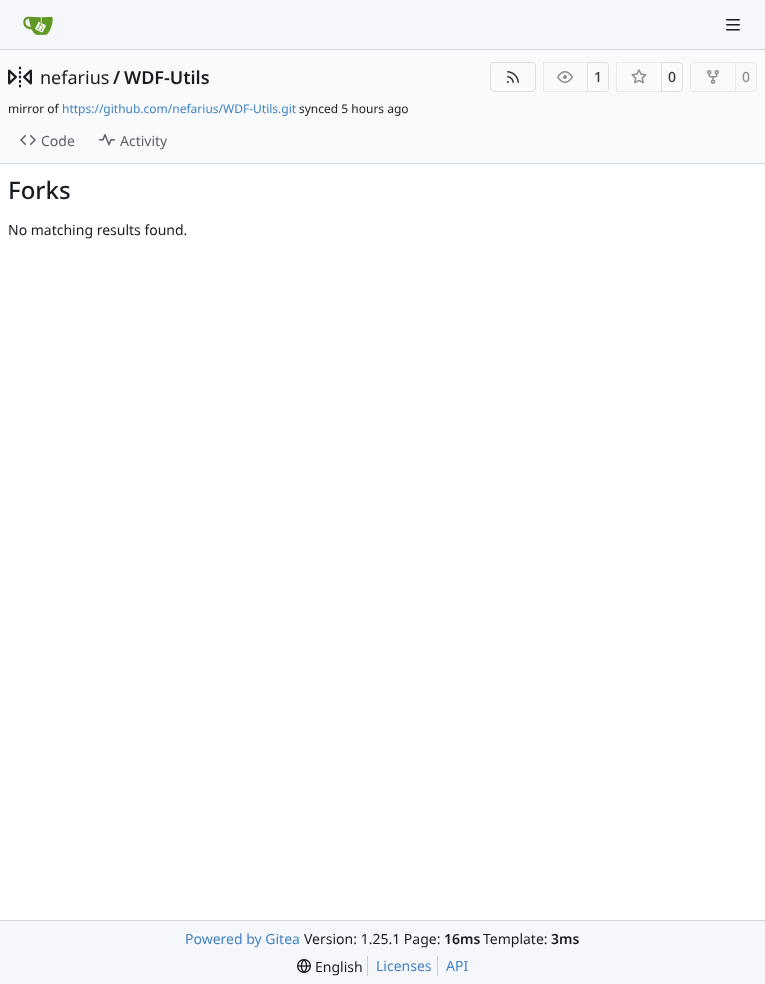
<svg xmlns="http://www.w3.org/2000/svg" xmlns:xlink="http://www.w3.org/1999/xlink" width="765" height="984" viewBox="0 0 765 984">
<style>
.cls-1{font:18px Noto Sans;fill:#181c21}
.cls-2{font:600 18px Noto Sans;fill:#181c21}
.cls-3{font:500 14px Noto Sans;fill:#30363b}
.cls-4{font:500 14px Noto Sans;fill:#8a8e91}
.cls-5{font:12px Noto Sans;fill:#181c21}
.cls-6{font:12px Noto Sans;fill:#4183c4}
.cls-7{font:14px Noto Sans;fill:#5b6167}
.cls-8{font:500 24px Noto Sans;fill:#181c21}
.cls-9{font:14px Noto Sans;fill:#181c21}
.cls-10{font:14px Noto Sans;fill:#4183c4}
.cls-11{font:600 14px Noto Sans;fill:#181c21}
</style>
<rect width="100%" height="100%" fill="#ffffff"/>
<rect fill="#f6f7fa" x="0" y="0" width="765" height="49"/>
<rect fill="#d0d7de" x="0" y="49" width="765" height="1"/>
<image xlink:href="image0.png" x="23" y="16" width="30" height="19"/>
<image xlink:href="image1.png" x="726" y="19" width="14" height="12"/>
<rect fill="#f9fafb" x="0" y="50" width="765" height="113"/>
<image xlink:href="image2.png" x="8" y="66" width="24" height="22"/>
<rect fill="none" stroke="#dddee1" x="490.5" y="62.5" width="45" height="29" rx="3.5"/>
<image xlink:href="image3.png" x="507" y="71" width="12" height="12"/>
<path fill="none" stroke="#dddee1" d="M587.5 62.5H605C607 62.5 608.5 64 608.5 66V88C608.5 90 607 91.5 605 91.5H587.5Z"/>
<path fill="#f8f9fb" fill-opacity="0.55" d="M547 62H588V92H547C545 92 543 90 543 88V66C543 64 545 62 547 62Z"/>
<rect fill="none" stroke="#000017" stroke-opacity="0.06" x="543.5" y="62.5" width="44" height="29"/>
<image xlink:href="image4.png" x="557" y="71" width="16" height="12"/>
<path fill="none" stroke="#dddee1" d="M661.5 62.5H679C681 62.5 682.5 64 682.5 66V88C682.5 90 681 91.5 679 91.5H661.5Z"/>
<path fill="#f8f9fb" fill-opacity="0.55" d="M620 62H662V92H620C618 92 616 90 616 88V66C616 64 618 62 620 62Z"/>
<rect fill="none" stroke="#000017" stroke-opacity="0.06" x="616.5" y="62.5" width="45" height="29"/>
<image xlink:href="image5.png" x="631" y="69" width="16" height="15"/>
<path fill="none" stroke="#e9eaed" d="M694 62.5H735.5V91.5H694C692 91.5 690.5 90 690.5 88V66C690.5 64 692 62.5 694 62.5Z"/>
<image xlink:href="image6.png" x="707" y="70" width="12" height="14"/>
<path fill="#f8f9fb" stroke="#e9eaed" d="M735.5 62.5H753C755 62.5 756.5 64 756.5 66V88C756.5 90 755 91.5 753 91.5H735.5Z"/>
<image xlink:href="image7.png" x="20" y="135" width="16" height="10"/>
<image xlink:href="image8.png" x="99" y="134" width="16" height="12"/>
<rect fill="#d0d7de" x="0" y="163" width="765" height="1"/>
<rect fill="#f6f7fa" x="0" y="921" width="765" height="63"/>
<rect fill="#d0d7de" x="0" y="920" width="765" height="1"/>
<image xlink:href="image9.png" x="297" y="959" width="14" height="14"/>
<rect fill="#c7ced5" x="367" y="956" width="1" height="20"/>
<rect fill="#c7ced5" x="437" y="956" width="1" height="20"/>
<text class="cls-1" x="40" y="84">nefarius</text>
<text class="cls-2" x="113" y="84">/</text>
<text class="cls-2" x="124" y="84">WDF-Utils</text>
<text class="cls-3" x="594" y="82">1</text>
<text class="cls-3" x="668" y="82">0</text>
<text class="cls-4" x="742" y="82">0</text>
<text class="cls-5" x="8" y="113">mirror of</text>
<text class="cls-6" x="62" y="113">https://github.com/nefarius/WDF-Utils.git</text>
<text class="cls-5" x="299" y="113">synced 5 hours ago</text>
<text class="cls-7" x="41" y="146">Code</text>
<text class="cls-7" x="120" y="146">Activity</text>
<text class="cls-8" x="8" y="199">Forks</text>
<text class="cls-9" x="8" y="235">No matching results found.</text>
<text class="cls-10" x="185" y="944">Powered by Gitea</text>
<text class="cls-9" x="304" y="944">Version: 1.25.1 Page:</text>
<text class="cls-11" x="444" y="944">16ms</text>
<text class="cls-9" x="483" y="944">Template:</text>
<text class="cls-11" x="551" y="944">3ms</text>
<text class="cls-9" x="315" y="972">English</text>
<text class="cls-10" x="376" y="971">Licenses</text>
<text class="cls-10" x="446" y="971">API</text>
</svg>
